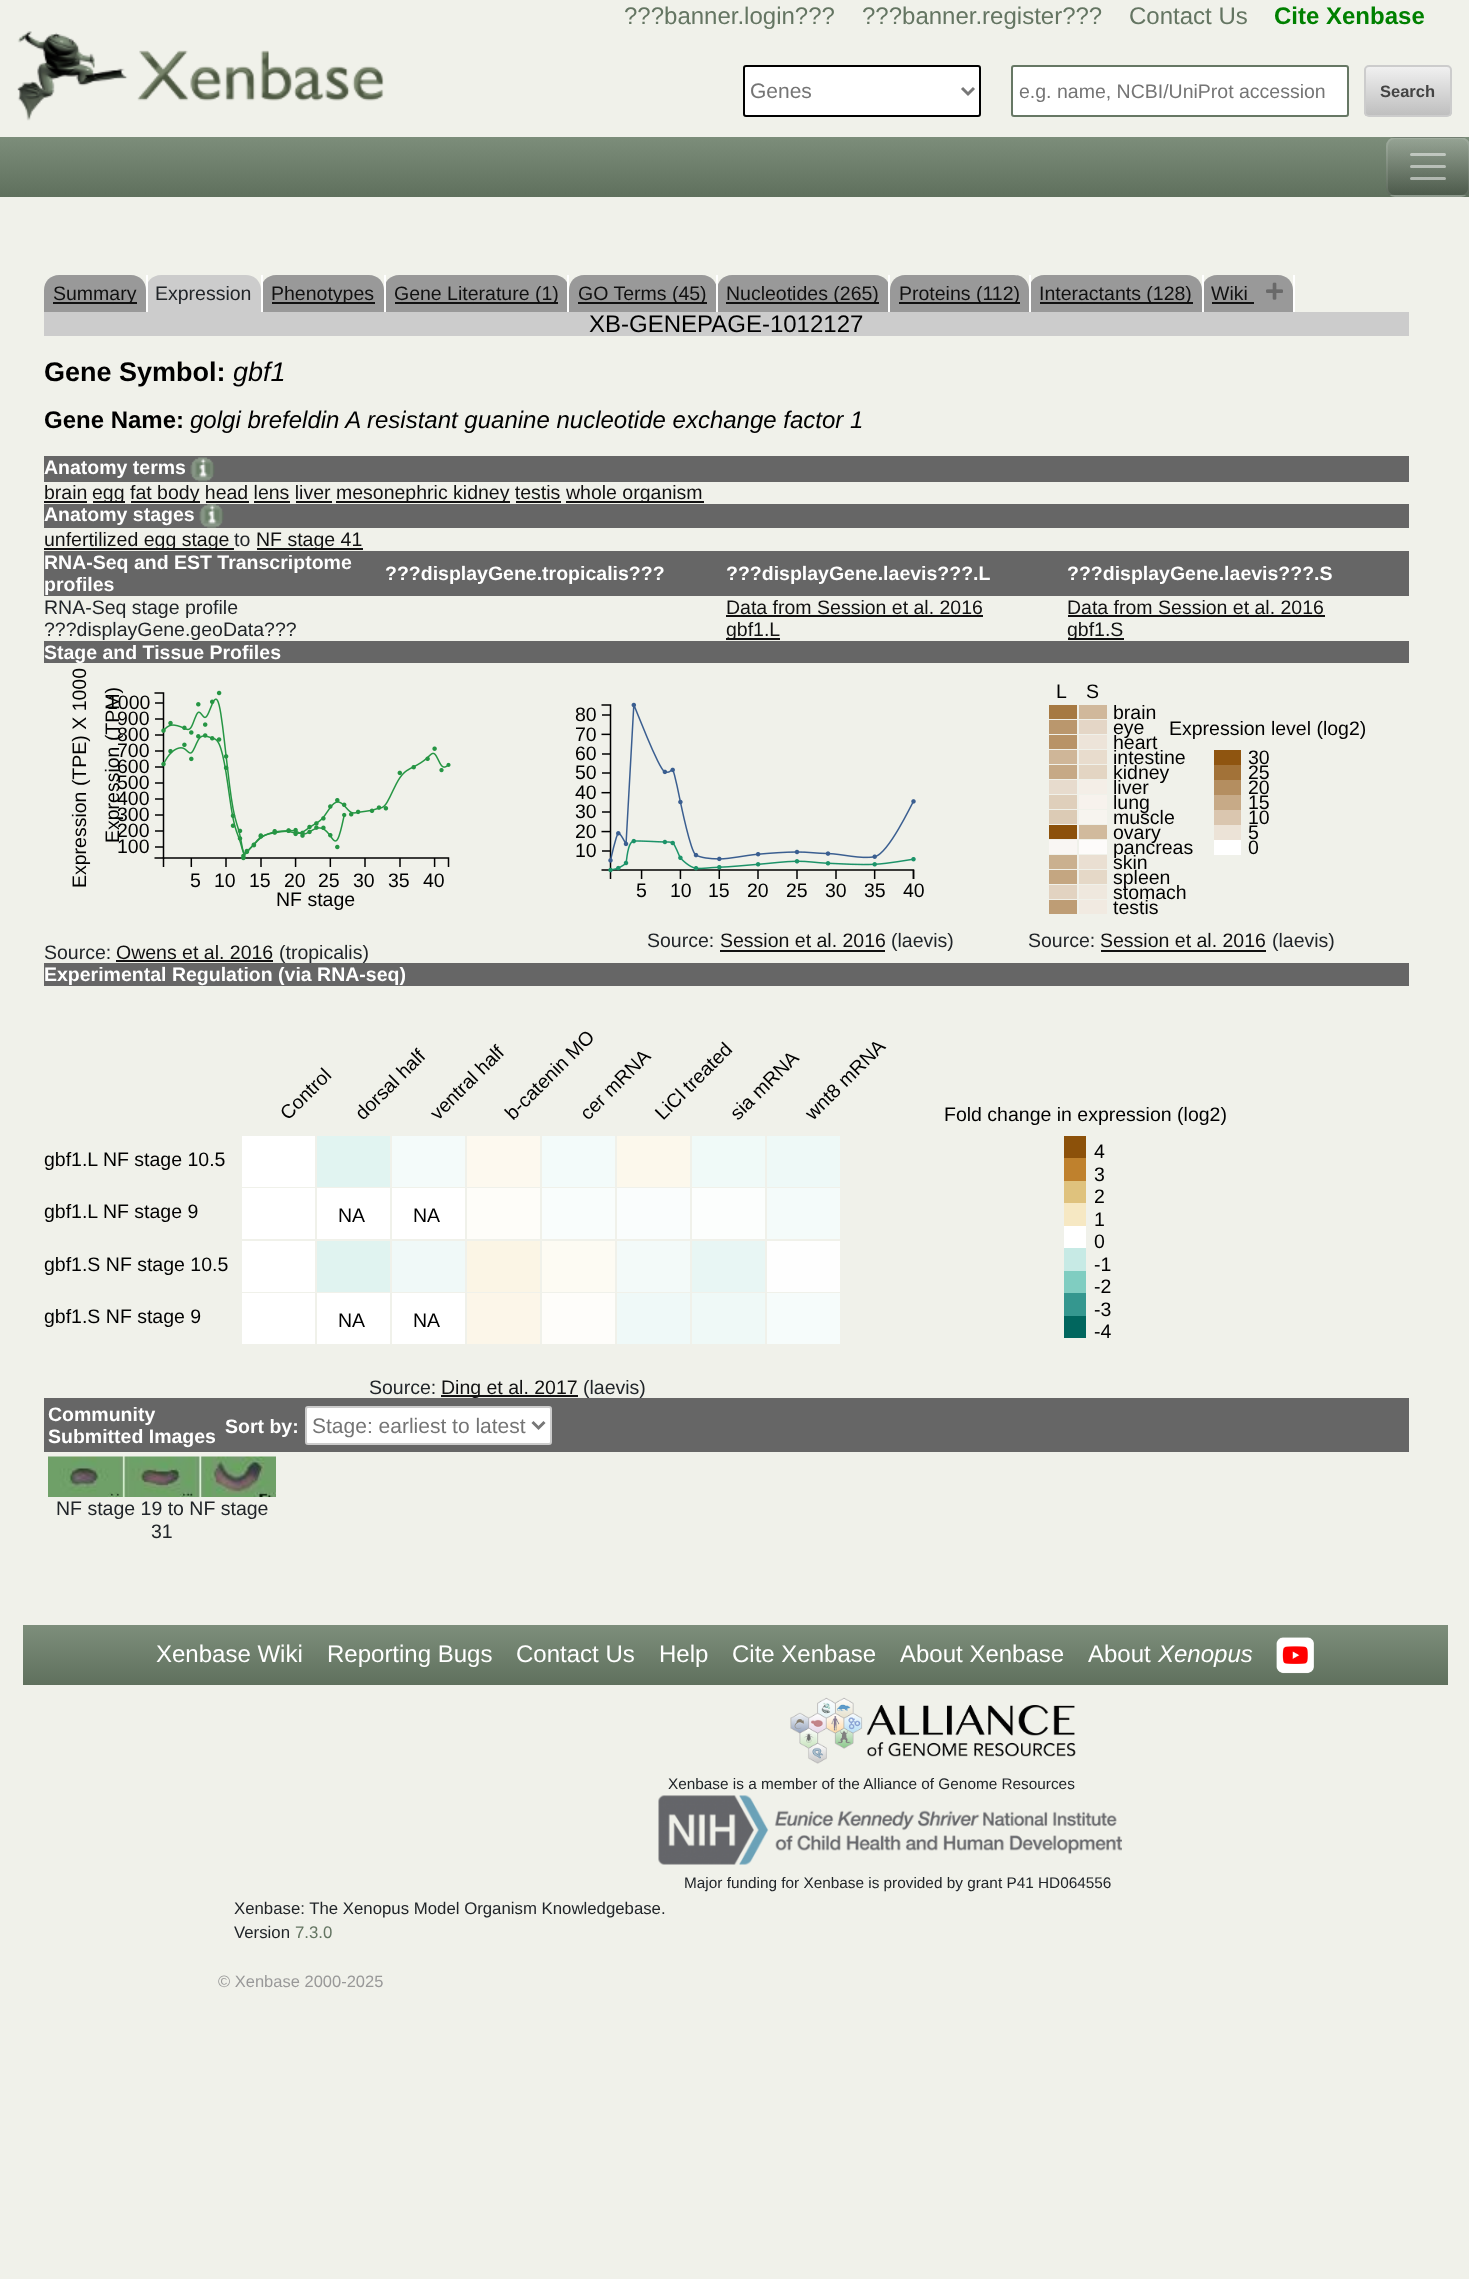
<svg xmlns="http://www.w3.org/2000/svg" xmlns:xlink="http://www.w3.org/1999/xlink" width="1469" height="2279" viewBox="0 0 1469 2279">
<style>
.cls-1{font:24px Liberation Sans;fill:#647562}
.cls-2{font:bold 24px Liberation Sans;fill:#008000}
.cls-3{font:21px Liberation Sans;fill:#757575}
.cls-4{font:19.5px Liberation Sans;fill:#757575}
.cls-5{font:bold 16.5px Liberation Sans;fill:#444444}
.cls-6{font:19.5px Liberation Sans;fill:#111111}
.cls-7{font:19.5px Liberation Sans;fill:#212529}
.cls-8{font:24px Liberation Sans;fill:#000000}
.cls-9{font:bold 27px Liberation Sans;fill:#000000}
.cls-10{font:italic 27px Liberation Sans;fill:#000000}
.cls-11{font:bold 24px Liberation Sans;fill:#000000}
.cls-12{font:italic 24px Liberation Sans;fill:#000000}
.cls-13{font:bold 19.5px Liberation Sans;fill:#ffffff}
.cls-14{font:19.5px Liberation Sans;fill:#000000}
.cls-15{font:24px Liberation Sans;fill:#ffffff}
.cls-16{font:italic 24px Liberation Sans;fill:#ffffff}
.cls-17{font:15.35px Liberation Sans;fill:#212529}
.cls-18{font:16.8px Liberation Sans;fill:#212529}
.cls-19{font:16.8px Liberation Sans;fill:#647562}
.cls-20{font:16.5px Liberation Sans;fill:#999999}
</style>
<defs>
<clipPath id="clip1"><rect x="1364" y="65" width="88" height="52" rx="5"/></clipPath>
<linearGradient id="g1" gradientUnits="userSpaceOnUse" x1="1408" y1="66" x2="1408" y2="116"><stop offset="0" stop-color="#f1f1f1"/><stop offset="1" stop-color="#bebebe"/></linearGradient>
<linearGradient id="g2" gradientUnits="userSpaceOnUse" x1="735" y1="136" x2="735" y2="197"><stop offset="0" stop-color="#7d8e7b"/><stop offset="1" stop-color="#5f705d"/></linearGradient>
<clipPath id="clip2"><rect x="1386" y="137" width="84" height="60" rx="9"/></clipPath>
<linearGradient id="g3" gradientUnits="userSpaceOnUse" x1="1428" y1="81" x2="1428" y2="138"><stop offset="0" stop-color="#96a495"/><stop offset="1" stop-color="#637162"/></linearGradient>
<linearGradient id="g4" gradientUnits="userSpaceOnUse" x1="1428" y1="138" x2="1428" y2="195"><stop offset="0" stop-color="#ffffff" stop-opacity="0.2"/><stop offset="1" stop-color="#000000" stop-opacity="0.2"/></linearGradient>
<linearGradient id="g5" gradientUnits="userSpaceOnUse" x1="1428" y1="195" x2="1428" y2="252"><stop offset="0" stop-color="#7f8d7e"/><stop offset="1" stop-color="#4c5a4b"/></linearGradient>
<linearGradient id="g6" gradientUnits="userSpaceOnUse" x1="735" y1="1625" x2="735" y2="1685"><stop offset="0" stop-color="#7d8e7b"/><stop offset="1" stop-color="#5f705d"/></linearGradient>
</defs>
<rect width="100%" height="100%" fill="#f0f1ea"/>
<image xlink:href="image0.png" x="17" y="31" width="367" height="90"/>
<rect fill="#ffffff" stroke="#000000" stroke-width="2" x="744" y="66" width="236" height="50" rx="2"/>
<path fill="none" stroke="#777777" stroke-width="3" d="M962 88L968 94L974 88"/>
<rect fill="#ffffff" stroke="#667764" stroke-width="2" x="1012" y="66" width="336" height="50" rx="2"/>
<g clip-path="url(#clip1)">
<rect fill="url(#g1)" x="1364" y="66" width="88" height="50"/>
</g>
<rect fill="none" stroke="#cccccc" stroke-width="2" x="1365" y="66" width="86" height="50" rx="4"/>
<rect fill="url(#g2)" x="0" y="137" width="1469" height="60"/>
<g clip-path="url(#clip2)">
<rect fill="url(#g3)" x="1386" y="137" width="83" height="1"/>
<rect fill="url(#g4)" x="1386" y="138" width="83" height="57"/>
<rect fill="url(#g5)" x="1386" y="195" width="83" height="2"/>
</g>
<rect fill="none" stroke="#ffffff" stroke-opacity="0.1" stroke-width="2" x="1387" y="138" width="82" height="58" rx="8"/>
<path fill="none" stroke="#ffffff" stroke-opacity="0.5" stroke-width="3" stroke-linecap="round" d="M1411.5 154.5H1444.5M1411.5 166.5H1444.5M1411.5 178.5H1444.5"/>
<path fill="#999999" d="M59 275H131C139.5 275 146 281.5 146 290V312H44V290C44 281.5 50.5 275 59 275Z"/>
<path fill="#cccccc" d="M161 275H246C254.5 275 261 281.5 261 290V312H146V290C146 281.5 152.5 275 161 275Z"/>
<rect fill="#ffffff" x="146" y="275" width="2" height="39"/>
<rect fill="#111111" x="53" y="302" width="84" height="2"/>
<path fill="#999999" d="M276 275H369C377.5 275 384 281.5 384 290V312H261V290C261 281.5 267.5 275 276 275Z"/>
<rect fill="#ffffff" x="261" y="275" width="2" height="39"/>
<path fill="#999999" d="M399 275H554C562.5 275 569 281.5 569 290V312H384V290C384 281.5 390.5 275 399 275Z"/>
<rect fill="#ffffff" x="384" y="275" width="2" height="39"/>
<rect fill="#111111" x="272" y="302" width="103" height="2"/>
<rect fill="#ffffff" x="567" y="275" width="2" height="39"/>
<rect fill="#111111" x="395" y="302" width="163" height="2"/>
<path fill="#999999" d="M584 275H702C710.5 275 717 281.5 717 290V312H569V290C569 281.5 575.5 275 584 275Z"/>
<path fill="#999999" d="M732 275H875C883.5 275 890 281.5 890 290V312H717V290C717 281.5 723.5 275 732 275Z"/>
<rect fill="#ffffff" x="716" y="275" width="2" height="39"/>
<rect fill="#111111" x="578" y="302" width="129" height="2"/>
<rect fill="#ffffff" x="888" y="275" width="2" height="39"/>
<rect fill="#111111" x="726" y="302" width="153" height="2"/>
<path fill="#999999" d="M905 275H1014C1022.5 275 1029 281.5 1029 290V312H890V290C890 281.5 896.5 275 905 275Z"/>
<path fill="#999999" d="M1044 275H1187C1195.5 275 1202 281.5 1202 290V312H1029V290C1029 281.5 1035.5 275 1044 275Z"/>
<rect fill="#ffffff" x="1029" y="275" width="2" height="39"/>
<rect fill="#111111" x="899" y="302" width="121" height="2"/>
<path fill="#999999" d="M1217 275H1278C1286.5 275 1293 281.5 1293 290V312H1202V290C1202 281.5 1208.5 275 1217 275Z"/>
<rect fill="#ffffff" x="1202" y="275" width="2" height="39"/>
<rect fill="#111111" x="1040" y="302" width="153" height="2"/>
<rect fill="#ffffff" x="1293" y="275" width="2" height="39"/>
<rect fill="#111111" x="1212" y="302" width="42" height="2"/>
<image xlink:href="image1.png" x="1266" y="282" width="17" height="18"/>
<rect fill="#cccccc" x="44" y="312" width="1365" height="24"/>
<rect fill="#666666" x="44" y="456" width="1365" height="26"/>
<image xlink:href="image2.png" x="190" y="457" width="25" height="25"/>
<rect fill="#111111" x="44" y="501" width="43" height="2"/>
<rect fill="#111111" x="93" y="501" width="32" height="2"/>
<rect fill="#111111" x="131" y="501" width="69" height="2"/>
<rect fill="#111111" x="336" y="501" width="174" height="2"/>
<rect fill="#111111" x="566" y="501" width="138" height="2"/>
<rect fill="#111111" x="206" y="501" width="43" height="2"/>
<rect fill="#111111" x="254" y="501" width="36" height="2"/>
<rect fill="#111111" x="296" y="501" width="36" height="2"/>
<rect fill="#111111" x="516" y="501" width="45" height="2"/>
<rect fill="#666666" x="44" y="504" width="1365" height="24"/>
<image xlink:href="image3.png" x="199" y="504" width="25" height="24"/>
<rect fill="#111111" x="44" y="548" width="190" height="2"/>
<rect fill="#111111" x="257" y="548" width="106" height="2"/>
<rect fill="#666666" x="44" y="551" width="1365" height="45"/>
<rect fill="#111111" x="726" y="615" width="257" height="2"/>
<rect fill="#111111" x="1068" y="615" width="257" height="2"/>
<rect fill="#111111" x="726" y="638" width="54" height="2"/>
<rect fill="#111111" x="1068" y="638" width="56" height="2"/>
<rect fill="#666666" x="44" y="641" width="1365" height="22"/>
<image xlink:href="image4.png" x="154" y="690" width="297" height="177"/>
<rect fill="#111111" x="116" y="960" width="157" height="2"/>
<image xlink:href="image5.png" x="601" y="702" width="315" height="177"/>
<rect fill="#111111" x="720" y="950" width="165" height="2"/>
<image xlink:href="image6.png" x="1049" y="705" width="192" height="209"/>
<rect fill="#111111" x="1101" y="950" width="165" height="2"/>
<rect fill="#666666" x="44" y="963" width="1365" height="23"/>
<image xlink:href="image7.png" x="242" y="1136" width="844" height="208"/>
<rect fill="#111111" x="441" y="1395" width="137" height="2"/>
<rect fill="#666666" x="44" y="1398" width="1365" height="54"/>
<rect fill="#ffffff" stroke="#cccccc" stroke-width="2" x="306" y="1407" width="245" height="37" rx="2"/>
<path fill="none" stroke="#777777" stroke-width="3" d="M532.5 1422L538.5 1428L544.5 1422"/>
<image xlink:href="image8.png" x="48" y="1456" width="228" height="41"/>
<rect fill="url(#g6)" x="23" y="1625" width="1425" height="60"/>
<image xlink:href="image9.png" x="1276" y="1637" width="38" height="37"/>
<image xlink:href="image10.png" x="790" y="1697" width="286" height="67"/>
<image xlink:href="image11.png" x="658" y="1795" width="464" height="70"/>
<text class="cls-1" x="624" y="24">???banner.login???</text>
<text class="cls-1" x="862" y="24">???banner.register???</text>
<text class="cls-1" x="1129" y="24">Contact Us</text>
<text class="cls-2" x="1274" y="24">Cite Xenbase</text>
<text class="cls-3" x="750" y="98">Genes</text>
<text class="cls-4" x="1019" y="98">e.g. name, NCBI/UniProt accession</text>
<text class="cls-5" x="1380" y="97">Search</text>
<text class="cls-6" x="53" y="300">Summary</text>
<text class="cls-7" x="155" y="300">Expression</text>
<text class="cls-6" x="271" y="300">Phenotypes</text>
<text class="cls-6" x="394" y="300">Gene Literature (1)</text>
<text class="cls-6" x="578" y="300">GO Terms (45)</text>
<text class="cls-6" x="726" y="300">Nucleotides (265)</text>
<text class="cls-6" x="899" y="300">Proteins (112)</text>
<text class="cls-6" x="1039" y="300">Interactants (128)</text>
<text class="cls-6" x="1211" y="300">Wiki</text>
<text class="cls-8" x="589" y="332">XB-GENEPAGE-1012127</text>
<text class="cls-9" x="44" y="381">Gene Symbol:</text>
<text class="cls-10" x="233" y="381">gbf1</text>
<text class="cls-11" x="44" y="428">Gene Name:</text>
<text class="cls-12" x="190" y="428">golgi brefeldin A resistant guanine nucleotide exchange factor 1</text>
<text class="cls-13" x="44" y="474">Anatomy terms</text>
<text class="cls-6" x="44" y="499">brain</text>
<text class="cls-6" x="92" y="499">egg</text>
<text class="cls-6" x="130" y="499">fat body head lens liver</text>
<text class="cls-6" x="336" y="499">mesonephric kidney testis</text>
<text class="cls-6" x="566" y="499">whole organism</text>
<text class="cls-13" x="44" y="521">Anatomy stages</text>
<text class="cls-6" x="44" y="546">unfertilized egg stage</text>
<text class="cls-7" x="234" y="546">to</text>
<text class="cls-6" x="256" y="546">NF stage 41</text>
<text class="cls-13"><tspan x="44" y="569">RNA-Seq and EST Transcriptome</tspan><tspan x="44" y="591">profiles</tspan></text>
<text class="cls-13" x="385" y="580">???displayGene.tropicalis???</text>
<text class="cls-13" x="726" y="580">???displayGene.laevis???.L</text>
<text class="cls-13" x="1067" y="580">???displayGene.laevis???.S</text>
<text class="cls-7" x="44" y="614">RNA-Seq stage profile</text>
<text class="cls-6" x="726" y="614">Data from Session et al. 2016</text>
<text class="cls-6" x="1067" y="614">Data from Session et al. 2016</text>
<text class="cls-7" x="44" y="636">???displayGene.geoData???</text>
<text class="cls-6" x="726" y="636">gbf1.L</text>
<text class="cls-6" x="1067" y="636">gbf1.S</text>
<text class="cls-13" x="44" y="659">Stage and Tissue Profiles</text>
<text class="cls-14" x="86" y="888" transform="rotate(-90 86 888)">Expression (TPE) X 1000</text>
<text class="cls-14" x="107" y="709">1000</text>
<text class="cls-14"><tspan x="117" y="725">900</tspan><tspan x="117" y="741">800</tspan><tspan x="117" y="757">700</tspan><tspan x="117" y="773">600</tspan><tspan x="117" y="789">500</tspan><tspan x="117" y="805">400</tspan><tspan x="117" y="821">300</tspan><tspan x="117" y="837">200</tspan></text>
<text class="cls-14" x="119" y="843" transform="rotate(-90 119 843)">Expression (TPM)</text>
<text class="cls-14" x="117" y="853">100</text>
<text class="cls-14" x="190" y="887">5</text>
<text class="cls-14" x="214" y="887">10</text>
<text class="cls-14" x="249" y="887">15</text>
<text class="cls-14" x="284" y="887">20</text>
<text class="cls-14" x="318" y="887">25</text>
<text class="cls-14" x="353" y="887">30</text>
<text class="cls-14" x="388" y="887">35</text>
<text class="cls-14" x="423" y="887">40</text>
<text class="cls-14" x="276" y="906">NF stage</text>
<text class="cls-7" x="44" y="959">Source:</text>
<text class="cls-6" x="116" y="959">Owens et al. 2016</text>
<text class="cls-7" x="279" y="959">(tropicalis)</text>
<text class="cls-14"><tspan x="575" y="721">80</tspan><tspan x="575" y="741">70</tspan><tspan x="575" y="760">60</tspan><tspan x="575" y="779">50</tspan><tspan x="575" y="799">40</tspan><tspan x="575" y="818">30</tspan><tspan x="575" y="838">20</tspan><tspan x="575" y="857">10</tspan></text>
<text class="cls-14" x="636" y="897">5</text>
<text class="cls-14" x="670" y="897">10</text>
<text class="cls-14" x="708" y="897">15</text>
<text class="cls-14" x="747" y="897">20</text>
<text class="cls-14" x="786" y="897">25</text>
<text class="cls-14" x="825" y="897">30</text>
<text class="cls-14" x="864" y="897">35</text>
<text class="cls-14" x="903" y="897">40</text>
<text class="cls-7" x="647" y="947">Source:</text>
<text class="cls-6" x="720" y="947">Session et al. 2016</text>
<text class="cls-7" x="891" y="947">(laevis)</text>
<text class="cls-14" x="1056" y="698">L</text>
<text class="cls-14" x="1086" y="698">S</text>
<text class="cls-14" x="1113" y="719">brain</text>
<text class="cls-14" x="1169" y="735">Expression level (log2)</text>
<text class="cls-14"><tspan x="1113" y="734">eye</tspan><tspan x="1113" y="749">heart</tspan><tspan x="1113" y="764">intestine</tspan></text>
<text class="cls-14" x="1248" y="764">30</text>
<text class="cls-14" x="1113" y="779">kidney</text>
<text class="cls-14" x="1248" y="779">25</text>
<text class="cls-14" x="1113" y="794">liver</text>
<text class="cls-14" x="1248" y="794">20</text>
<text class="cls-14" x="1113" y="809">lung</text>
<text class="cls-14" x="1248" y="809">15</text>
<text class="cls-14" x="1113" y="824">muscle</text>
<text class="cls-14" x="1248" y="824">10</text>
<text class="cls-14" x="1113" y="839">ovary</text>
<text class="cls-14" x="1248" y="839">5</text>
<text class="cls-14" x="1113" y="854">pancreas</text>
<text class="cls-14" x="1248" y="854">0</text>
<text class="cls-14"><tspan x="1113" y="869">skin</tspan><tspan x="1113" y="884">spleen</tspan><tspan x="1113" y="899">stomach</tspan><tspan x="1113" y="914">testis</tspan></text>
<text class="cls-7" x="1028" y="947">Source:</text>
<text class="cls-6" x="1100" y="947">Session et al. 2016</text>
<text class="cls-7" x="1272" y="947">(laevis)</text>
<text class="cls-13" x="44" y="981">Experimental Regulation (via RNA-seq)</text>
<text class="cls-14" x="288" y="1121" transform="rotate(-45 288 1121)">Control</text>
<text class="cls-14" x="363" y="1121" transform="rotate(-45 363 1121)">dorsal half</text>
<text class="cls-14" x="438" y="1121" transform="rotate(-45 438 1121)">ventral half</text>
<text class="cls-14" x="513" y="1121" transform="rotate(-45 513 1121)">b-catenin MO</text>
<text class="cls-14" x="588" y="1121" transform="rotate(-45 588 1121)">cer mRNA</text>
<text class="cls-14" x="663" y="1121" transform="rotate(-45 663 1121)">LiCl treated</text>
<text class="cls-14" x="738" y="1121" transform="rotate(-45 738 1121)">sia mRNA</text>
<text class="cls-14" x="813" y="1121" transform="rotate(-45 813 1121)">wnt8 mRNA</text>
<text class="cls-14" x="944" y="1121">Fold change in expression (log2)</text>
<text class="cls-14" x="44" y="1166">gbf1.L NF stage 10.5</text>
<text class="cls-14"><tspan x="1094" y="1158">4</tspan><tspan x="1094" y="1181">3</tspan><tspan x="1094" y="1203">2</tspan></text>
<text class="cls-14" x="44" y="1218">gbf1.L NF stage 9</text>
<text class="cls-14" x="338" y="1222">NA</text>
<text class="cls-14" x="413" y="1222">NA</text>
<text class="cls-14"><tspan x="1094" y="1226">1</tspan><tspan x="1094" y="1248">0</tspan></text>
<text class="cls-14" x="44" y="1271">gbf1.S NF stage 10.5</text>
<text class="cls-14"><tspan x="1094" y="1271">-1</tspan><tspan x="1094" y="1293">-2</tspan></text>
<text class="cls-14" x="44" y="1323">gbf1.S NF stage 9</text>
<text class="cls-14" x="338" y="1327">NA</text>
<text class="cls-14" x="413" y="1327">NA</text>
<text class="cls-14"><tspan x="1094" y="1316">-3</tspan><tspan x="1094" y="1338">-4</tspan></text>
<text class="cls-7" x="369" y="1394">Source:</text>
<text class="cls-6" x="441" y="1394">Ding et al. 2017</text>
<text class="cls-7" x="583" y="1394">(laevis)</text>
<text class="cls-13"><tspan x="48" y="1421">Community</tspan><tspan x="48" y="1443">Submitted Images</tspan></text>
<text class="cls-13" x="225" y="1433">Sort by:</text>
<text class="cls-3" x="312" y="1433">Stage: earliest to latest</text>
<text class="cls-7" x="56" y="1515">NF stage 19 to NF stage</text>
<text class="cls-7" x="151" y="1538">31</text>
<text class="cls-15" x="156" y="1662">Xenbase Wiki</text>
<text class="cls-15" x="327" y="1662">Reporting Bugs</text>
<text class="cls-15" x="516" y="1662">Contact Us</text>
<text class="cls-15" x="659" y="1662">Help</text>
<text class="cls-15" x="732" y="1662">Cite Xenbase</text>
<text class="cls-15" x="900" y="1662">About Xenbase</text>
<text class="cls-15" x="1088" y="1662">About</text>
<text class="cls-16" x="1158" y="1662">Xenopus</text>
<text class="cls-17" x="668" y="1789">Xenbase is a member of the Alliance of Genome Resources</text>
<text class="cls-17" x="684" y="1888">Major funding for Xenbase is provided by grant P41 HD064556</text>
<text class="cls-18"><tspan x="234" y="1914">Xenbase: The Xenopus Model Organism Knowledgebase.</tspan><tspan x="234" y="1938">Version</tspan></text>
<text class="cls-19" x="295" y="1938">7.3.0</text>
<text class="cls-20" x="218" y="1987">© Xenbase 2000-2025</text>
</svg>
